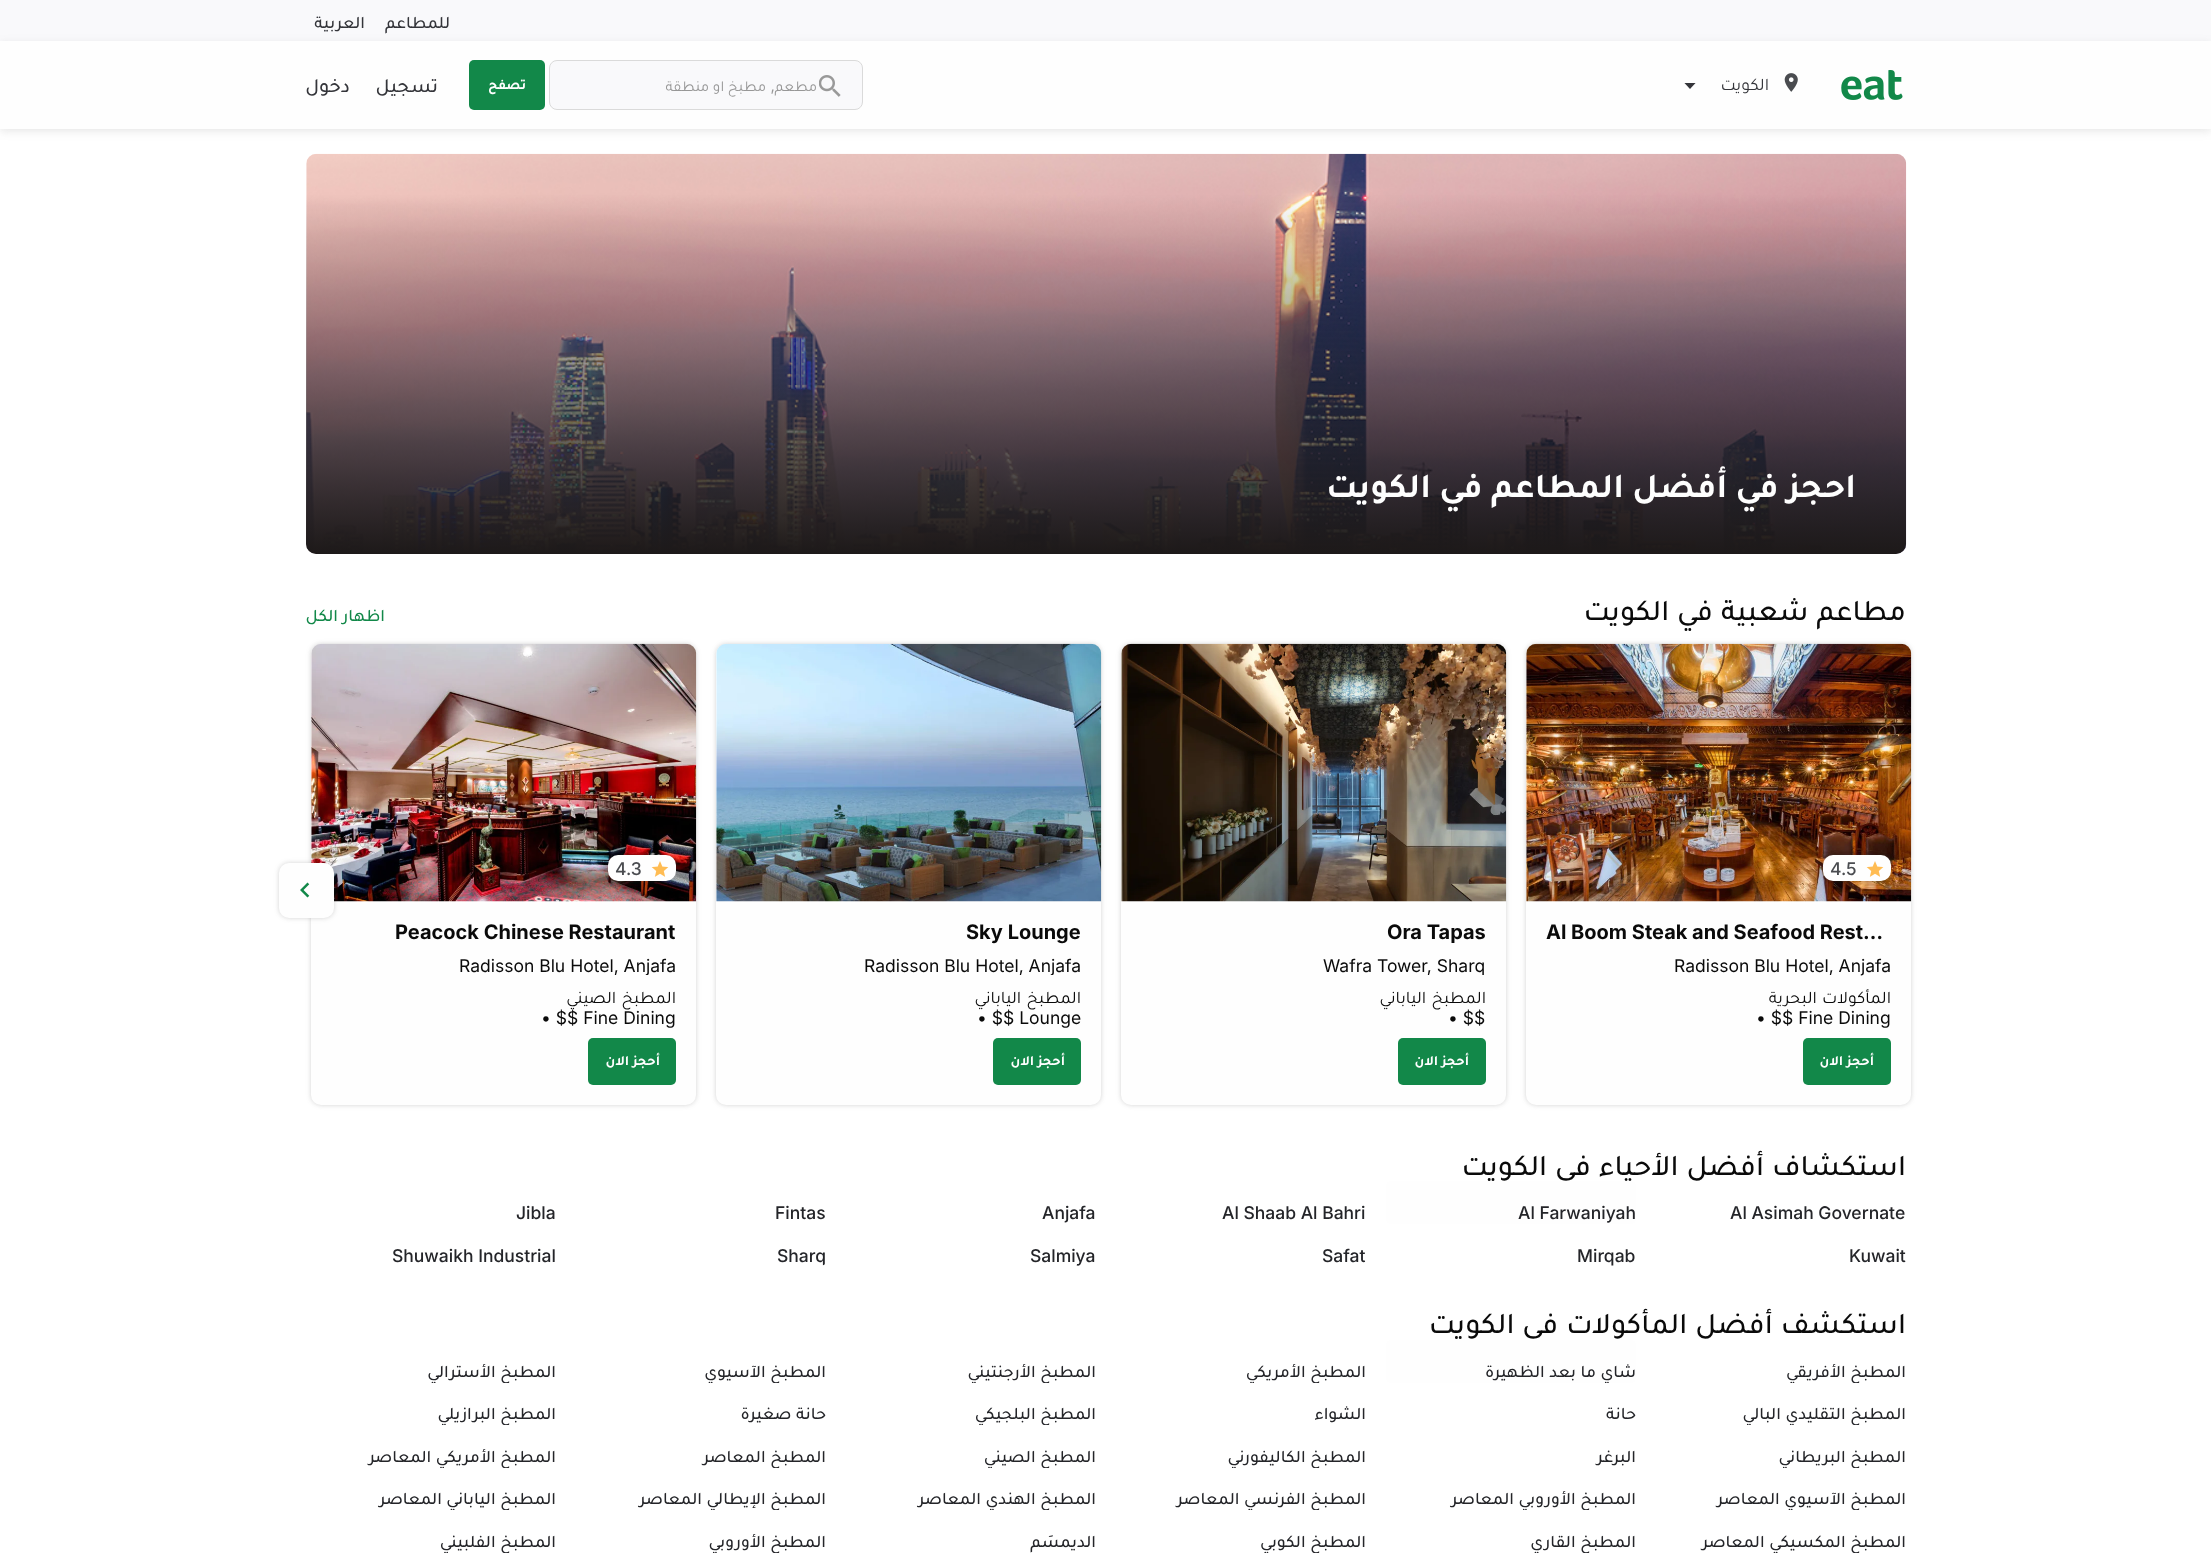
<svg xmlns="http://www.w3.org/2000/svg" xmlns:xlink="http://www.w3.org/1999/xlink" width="2211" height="1558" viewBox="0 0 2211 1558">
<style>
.cls-1{font:500 17.5px Tajawal;direction:rtl;fill:#34353a}
.cls-2{font:17.5px Tajawal;direction:rtl;fill:#34353a}
.cls-3{font:15.25px Tajawal;direction:rtl;fill:#979797}
.cls-4{font:15.25px Inter;direction:rtl;fill:#979797}
.cls-5{font:bold 14px Tajawal;direction:rtl;fill:#fefefe}
.cls-6{font:500 20px Tajawal;direction:rtl;fill:#34353a}
.cls-7{font:bold 35px Tajawal;direction:rtl;fill:#fefefe}
.cls-8{font:500 30px Tajawal;direction:rtl;fill:#0a0a0a}
.cls-9{font:500 17.5px Tajawal;direction:rtl;fill:#128849}
.cls-10{font:500 17.5px Inter;fill:#4a4c50}
.cls-11{font:bold 20px Inter;fill:#0a0a0a}
.cls-12{font:17.5px Inter;fill:#0a0a0a}
.cls-13{font:17.5px Tajawal;direction:rtl;fill:#0a0a0a}
.cls-14{font:500 17.5px Inter;fill:#242529}
.cls-15{font:500 17.5px Tajawal;direction:rtl;fill:#242529}
</style>
<defs>
<clipPath id="clip1"><rect x="1684" y="83" width="12" height="6"/></clipPath>
<linearGradient id="g1" gradientUnits="userSpaceOnUse" x1="1106" y1="154" x2="1106" y2="554"><stop offset="0.1" stop-color="#1d1919" stop-opacity="0"/><stop offset="1" stop-color="#1d1919"/></linearGradient>
<clipPath id="clip2"><rect x="1141" y="954" width="345" height="21"/></clipPath>
<clipPath id="clip3"><rect x="736" y="954" width="345" height="21"/></clipPath>
<clipPath id="clip4"><rect x="331" y="954" width="345" height="21"/></clipPath>
<clipPath id="clip5"><rect x="576" y="1224" width="250" height="42" rx="5"/></clipPath>
<clipPath id="clip6"><rect x="1656" y="1340" width="250" height="43" rx="5"/></clipPath>
<clipPath id="clip7"><rect x="1386" y="1340" width="250" height="43" rx="5"/></clipPath>
<clipPath id="clip8"><rect x="1116" y="1340" width="250" height="43" rx="5"/></clipPath>
<clipPath id="clip9"><rect x="846" y="1340" width="250" height="43" rx="5"/></clipPath>
<clipPath id="clip10"><rect x="576" y="1340" width="250" height="43" rx="5"/></clipPath>
<clipPath id="clip11"><rect x="306" y="1340" width="250" height="43" rx="5"/></clipPath>
<clipPath id="clip12"><rect x="1656" y="1383" width="250" height="42" rx="5"/></clipPath>
<clipPath id="clip13"><rect x="846" y="1383" width="250" height="42" rx="5"/></clipPath>
<clipPath id="clip14"><rect x="306" y="1383" width="250" height="42" rx="5"/></clipPath>
<clipPath id="clip15"><rect x="1656" y="1425" width="250" height="43" rx="5"/></clipPath>
<clipPath id="clip16"><rect x="1116" y="1425" width="250" height="43" rx="5"/></clipPath>
<clipPath id="clip17"><rect x="846" y="1425" width="250" height="43" rx="5"/></clipPath>
<clipPath id="clip18"><rect x="576" y="1425" width="250" height="43" rx="5"/></clipPath>
<clipPath id="clip19"><rect x="306" y="1425" width="250" height="43" rx="5"/></clipPath>
<clipPath id="clip20"><rect x="1656" y="1468" width="250" height="42" rx="5"/></clipPath>
<clipPath id="clip21"><rect x="1386" y="1468" width="250" height="42" rx="5"/></clipPath>
<clipPath id="clip22"><rect x="1116" y="1468" width="250" height="42" rx="5"/></clipPath>
<clipPath id="clip23"><rect x="846" y="1468" width="250" height="42" rx="5"/></clipPath>
<clipPath id="clip24"><rect x="576" y="1468" width="250" height="42" rx="5"/></clipPath>
<clipPath id="clip25"><rect x="306" y="1468" width="250" height="42" rx="5"/></clipPath>
<clipPath id="clip26"><rect x="1656" y="1510" width="250" height="43" rx="5"/></clipPath>
<clipPath id="clip27"><rect x="1386" y="1510" width="250" height="43" rx="5"/></clipPath>
<clipPath id="clip28"><rect x="1116" y="1510" width="250" height="43" rx="5"/></clipPath>
<clipPath id="clip29"><rect x="576" y="1510" width="250" height="43" rx="5"/></clipPath>
<clipPath id="clip30"><rect x="306" y="1510" width="250" height="43" rx="5"/></clipPath>
</defs>
<rect width="100%" height="100%" fill="#ffffff"/>
<rect fill="#f9f9fb" x="0" y="0" width="2211" height="41"/>
<rect fill="#505050" fill-opacity="0.15" filter="blur(5px)" x="0" y="44" width="2211" height="87"/>
<rect fill="#fefefe" x="0" y="41" width="2211" height="88"/>
<image xlink:href="image0.png" x="1841" y="70" width="62" height="30"/>
<image xlink:href="image1.png" x="1784" y="73" width="14" height="19"/>
<g clip-path="url(#clip1)">
<path fill="#34353a" d="M1684 82.5L1690 89L1696 82.5Z"/>
</g>
<rect fill="#f9f9fb" stroke="#dadada" x="549.5" y="60.5" width="313" height="49" rx="7.5"/>
<image xlink:href="image2.png" x="819" y="75" width="22" height="22"/>
<rect fill="#128849" x="469" y="60" width="76" height="50" rx="5"/>
<image xlink:href="image3.png" x="306" y="153" width="1601" height="401"/>
<rect fill="url(#g1)" x="306" y="154" width="1600" height="400" rx="10"/>
<rect fill="#505050" fill-opacity="0.25" filter="blur(2.5px)" x="1526" y="644" width="385" height="461" rx="10"/>
<rect fill="#fefefe" x="1526" y="644" width="385" height="461" rx="10"/>
<image xlink:href="image4.png" x="1526" y="643" width="386" height="259"/>
<rect fill="#505050" fill-opacity="0.25" filter="blur(2.5px)" x="1823" y="855" width="68" height="26" rx="10"/>
<rect fill="#fefefe" x="1823" y="855" width="68" height="26" rx="10"/>
<image xlink:href="image5.png" x="1866" y="861" width="18" height="16"/>
<rect fill="#128849" x="1803" y="1038" width="88" height="47" rx="5"/>
<rect fill="#505050" fill-opacity="0.25" filter="blur(2.5px)" x="1121" y="644" width="385" height="461" rx="10"/>
<rect fill="#fefefe" x="1121" y="644" width="385" height="461" rx="10"/>
<image xlink:href="image6.png" x="1121" y="643" width="386" height="259"/>
<rect fill="#128849" x="1398" y="1038" width="88" height="47" rx="5"/>
<rect fill="#505050" fill-opacity="0.25" filter="blur(2.5px)" x="716" y="644" width="385" height="461" rx="10"/>
<rect fill="#fefefe" x="716" y="644" width="385" height="461" rx="10"/>
<image xlink:href="image7.png" x="716" y="643" width="386" height="259"/>
<rect fill="#128849" x="993" y="1038" width="88" height="47" rx="5"/>
<rect fill="#505050" fill-opacity="0.25" filter="blur(2.5px)" x="311" y="644" width="385" height="461" rx="10"/>
<rect fill="#fefefe" x="311" y="644" width="385" height="461" rx="10"/>
<image xlink:href="image8.png" x="311" y="643" width="386" height="259"/>
<rect fill="#505050" fill-opacity="0.25" filter="blur(2.5px)" x="608" y="855" width="68" height="26" rx="10"/>
<rect fill="#fefefe" x="608" y="855" width="68" height="26" rx="10"/>
<image xlink:href="image5.png" x="651" y="861" width="18" height="16"/>
<rect fill="#128849" x="588" y="1038" width="88" height="47" rx="5"/>
<rect fill="#505050" fill-opacity="0.25" filter="blur(2.5px)" x="279" y="863" width="55" height="55" rx="10"/>
<rect fill="#fefefe" x="279" y="863" width="55" height="55" rx="10"/>
<image xlink:href="image9.png" x="300" y="882" width="10" height="16"/>
<text class="cls-1" x="450" y="28">للمطاعم</text>
<text class="cls-1" x="365" y="28">العربية</text>
<text class="cls-2" x="1769" y="90">الكويت</text>
<text class="cls-3" x="817" y="91">مطعم</text>
<text class="cls-4" x="775" y="91">,</text>
<text class="cls-3" x="766" y="91">مطبخ او منطقة</text>
<text class="cls-5" x="526" y="89">تصفح</text>
<text class="cls-6" x="438" y="92">تسجيل</text>
<text class="cls-6" x="350" y="92">دخول</text>
<text class="cls-7" x="1856" y="497">احجز في أفضل المطاعم في الكويت</text>
<text class="cls-8" x="1906" y="620" word-spacing="1">مطاعم شعبية في الكويت</text>
<text class="cls-9" x="385" y="621" word-spacing="0.5">اظهار الكل</text>
<text class="cls-10" x="1830" y="875">4.5</text>
<text class="cls-11" x="1546" y="939">Al Boom Steak and Seafood Rest…</text>
<text class="cls-12" x="1674" y="972">Radisson Blu Hotel, Anjafa</text>
<text class="cls-13" x="1891" y="1003" word-spacing="1">المأكولات البحرية</text>
<text class="cls-12" x="1756" y="1024">• $$ Fine Dining</text>
<text class="cls-5" x="1874" y="1065">أحجز الان</text>
<text class="cls-11" x="1387" y="939">Ora Tapas</text>
<g clip-path="url(#clip2)">
<text class="cls-12" x="1323" y="972">Wafra Tower, Sharq</text>
</g>
<text class="cls-13" x="1486" y="1003" word-spacing="1">المطبخ الياباني</text>
<text class="cls-12" x="1448" y="1024">• $$</text>
<text class="cls-5" x="1469" y="1065">أحجز الان</text>
<text class="cls-11" x="966" y="939">Sky Lounge</text>
<g clip-path="url(#clip3)">
<text class="cls-12" x="864" y="972">Radisson Blu Hotel, Anjafa</text>
</g>
<text class="cls-13" x="1081" y="1003" word-spacing="1">المطبخ الياباني</text>
<text class="cls-12" x="977" y="1024">• $$ Lounge</text>
<text class="cls-5" x="1065" y="1065">أحجز الان</text>
<text class="cls-10" x="615" y="875">4.3</text>
<text class="cls-11" x="395" y="939">Peacock Chinese Restaurant</text>
<g clip-path="url(#clip4)">
<text class="cls-12" x="459" y="972">Radisson Blu Hotel, Anjafa</text>
</g>
<text class="cls-13" x="676" y="1003" word-spacing="1">المطبخ الصيني</text>
<text class="cls-12" x="541" y="1024">• $$ Fine Dining</text>
<text class="cls-5" x="660" y="1065">أحجز الان</text>
<text class="cls-8" x="1906" y="1175" word-spacing="1">استكشاف أفضل الأحياء في الكويت</text>
<text class="cls-14" x="1730" y="1219">Al Asimah Governate</text>
<rect fill="#fefefe" x="1386" y="1181" width="250" height="43" rx="5"/>
<text class="cls-14" x="1518" y="1219">Al Farwaniyah</text>
<text class="cls-14" x="1222" y="1219">Al Shaab Al Bahri</text>
<text class="cls-14" x="1042" y="1219">Anjafa</text>
<text class="cls-14" x="775" y="1219">Fintas</text>
<text class="cls-14" x="516" y="1219">Jibla</text>
<text class="cls-14" x="1849" y="1262">Kuwait</text>
<text class="cls-14" x="1577" y="1262">Mirqab</text>
<text class="cls-14" x="1322" y="1262">Safat</text>
<text class="cls-14" x="1030" y="1262">Salmiya</text>
<g clip-path="url(#clip5)">
<text class="cls-14" x="777" y="1262">Sharq</text>
</g>
<text class="cls-14" x="392" y="1262">Shuwaikh Industrial</text>
<text class="cls-8" x="1906" y="1333" word-spacing="1">استكشف أفضل المأكولات في الكويت</text>
<g clip-path="url(#clip6)">
<text class="cls-15" x="1906" y="1377" word-spacing="0.5">المطبخ الأفريقي</text>
</g>
<rect fill="#fefefe" x="1386" y="1340" width="250" height="43" rx="5"/>
<g clip-path="url(#clip7)">
<text class="cls-15" x="1636" y="1377" word-spacing="0.5">شاي ما بعد الظهيرة</text>
</g>
<g clip-path="url(#clip8)">
<text class="cls-15" x="1366" y="1377" word-spacing="0.5">المطبخ الأمريكي</text>
</g>
<g clip-path="url(#clip9)">
<text class="cls-15" x="1096" y="1377" word-spacing="0.5">المطبخ الأرجنتيني</text>
</g>
<g clip-path="url(#clip10)">
<text class="cls-15" x="826" y="1377" word-spacing="0.5">المطبخ الآسيوي</text>
</g>
<g clip-path="url(#clip11)">
<text class="cls-15" x="556" y="1377" word-spacing="0.5">المطبخ الأسترالي</text>
</g>
<g clip-path="url(#clip12)">
<text class="cls-15" x="1906" y="1419" word-spacing="0.5">المطبخ التقليدي البالي</text>
</g>
<text class="cls-15" x="1636" y="1419">حانة</text>
<text class="cls-15" x="1366" y="1419">الشواء</text>
<g clip-path="url(#clip13)">
<text class="cls-15" x="1096" y="1419" word-spacing="0.5">المطبخ البلجيكي</text>
</g>
<text class="cls-15" x="826" y="1419" word-spacing="0.5">حانة صغيرة</text>
<g clip-path="url(#clip14)">
<text class="cls-15" x="556" y="1419" word-spacing="0.5">المطبخ البرازيلي</text>
</g>
<g clip-path="url(#clip15)">
<text class="cls-15" x="1906" y="1462" word-spacing="0.5">المطبخ البريطاني</text>
</g>
<text class="cls-15" x="1636" y="1462">البرغر</text>
<g clip-path="url(#clip16)">
<text class="cls-15" x="1366" y="1462" word-spacing="0.5">المطبخ الكاليفورني</text>
</g>
<g clip-path="url(#clip17)">
<text class="cls-15" x="1096" y="1462" word-spacing="0.5">المطبخ الصيني</text>
</g>
<g clip-path="url(#clip18)">
<text class="cls-15" x="826" y="1462" word-spacing="0.5">المطبخ المعاصر</text>
</g>
<g clip-path="url(#clip19)">
<text class="cls-15" x="556" y="1462" word-spacing="0.5">المطبخ الأمريكي المعاصر</text>
</g>
<g clip-path="url(#clip20)">
<text class="cls-15" x="1906" y="1504" word-spacing="0.5">المطبخ الآسيوي المعاصر</text>
</g>
<g clip-path="url(#clip21)">
<text class="cls-15" x="1636" y="1504" word-spacing="0.5">المطبخ الأوروبي المعاصر</text>
</g>
<g clip-path="url(#clip22)">
<text class="cls-15" x="1366" y="1504" word-spacing="0.5">المطبخ الفرنسي المعاصر</text>
</g>
<g clip-path="url(#clip23)">
<text class="cls-15" x="1096" y="1504" word-spacing="0.5">المطبخ الهندي المعاصر</text>
</g>
<g clip-path="url(#clip24)">
<text class="cls-15" x="826" y="1504" word-spacing="0.5">المطبخ الإيطالي المعاصر</text>
</g>
<g clip-path="url(#clip25)">
<text class="cls-15" x="556" y="1504" word-spacing="0.5">المطبخ الياباني المعاصر</text>
</g>
<g clip-path="url(#clip26)">
<text class="cls-15" x="1906" y="1547" word-spacing="0.5">المطبخ المكسيكي المعاصر</text>
</g>
<g clip-path="url(#clip27)">
<text class="cls-15" x="1636" y="1547" word-spacing="0.5">المطبخ القاري</text>
</g>
<g clip-path="url(#clip28)">
<text class="cls-15" x="1366" y="1547" word-spacing="0.5">المطبخ الكوبي</text>
</g>
<text class="cls-15" x="1096" y="1547">الديمسَم</text>
<g clip-path="url(#clip29)">
<text class="cls-15" x="826" y="1547" word-spacing="0.5">المطبخ الأوروبي</text>
</g>
<g clip-path="url(#clip30)">
<text class="cls-15" x="556" y="1547" word-spacing="0.5">المطبخ الفلبيني</text>
</g>
</svg>
